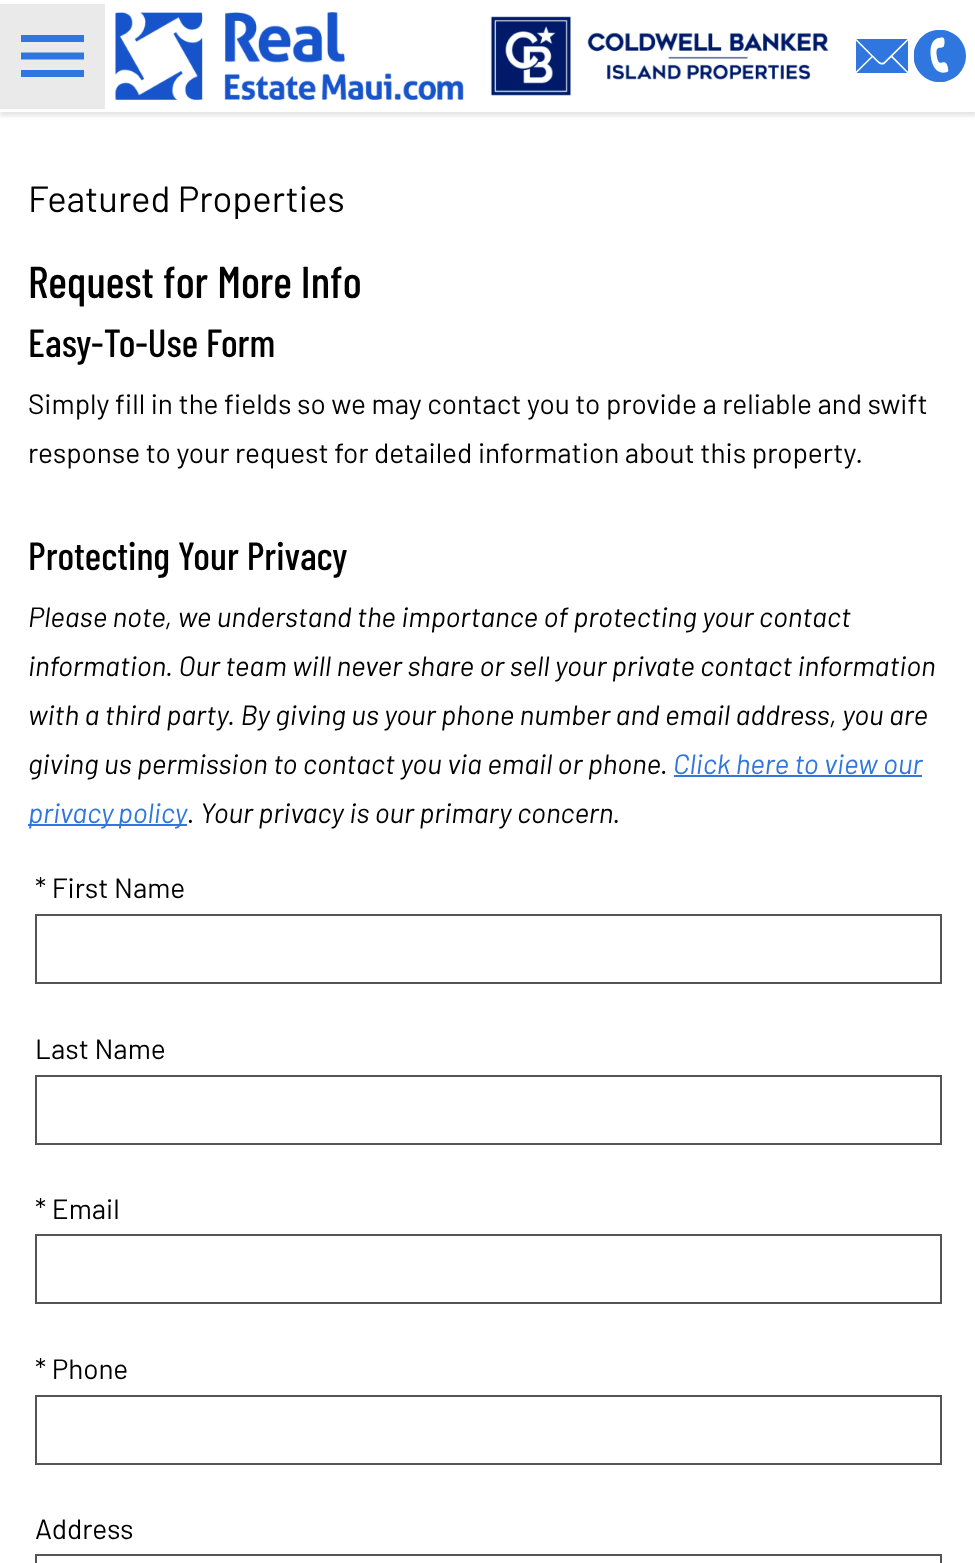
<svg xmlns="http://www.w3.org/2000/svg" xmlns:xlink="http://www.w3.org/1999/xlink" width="975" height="1563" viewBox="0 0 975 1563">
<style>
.cls-1{font:36.5px Barlow;fill:#000000}
.cls-2{font:500 44.75px Barlow Condensed;fill:#000000}
.cls-3{font:500 39.25px Barlow Condensed;fill:#000000}
.cls-4{font:28px Barlow;fill:#000000}
.cls-5{font:italic 28px Barlow;fill:#000000}
.cls-6{font:italic 28px Barlow;fill:#2f76de}
</style>
<defs>
<clipPath id="clip1"><rect x="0" y="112" width="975" height="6"/></clipPath>
</defs>
<rect width="100%" height="100%" fill="#ffffff"/>
<g clip-path="url(#clip1)">
<rect fill="#000000" fill-opacity="0.1" filter="blur(2px)" x="0" y="4" width="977" height="112"/>
</g>
<rect fill="#eaeaea" x="0" y="4" width="105" height="105"/>
<image xlink:href="image0.png" x="21" y="35" width="63" height="42"/>
<image xlink:href="image1.png" x="115" y="12" width="349" height="88"/>
<image xlink:href="image2.png" x="490" y="16" width="339" height="80"/>
<image xlink:href="image3.png" x="856" y="39" width="52" height="34"/>
<image xlink:href="image4.png" x="914" y="30" width="52" height="52"/>
<rect fill="#2f76de" x="674" y="775" width="248" height="2"/>
<rect fill="#2f76de" x="28" y="824" width="159" height="2"/>
<rect fill="none" stroke="#555454" stroke-width="2" x="36" y="915" width="905" height="68"/>
<rect fill="none" stroke="#555454" stroke-width="2" x="36" y="1076" width="905" height="68"/>
<rect fill="none" stroke="#555454" stroke-width="2" x="36" y="1235" width="905" height="68"/>
<rect fill="none" stroke="#555454" stroke-width="2" x="36" y="1396" width="905" height="68"/>
<rect fill="none" stroke="#555454" stroke-width="2" x="36" y="1555" width="905" height="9"/>
<text class="cls-1" x="28" y="212">Featured Properties</text>
<text class="cls-2" x="28" y="298">Request for More Info</text>
<text class="cls-3" x="28" y="357">Easy-To-Use Form</text>
<text class="cls-4"><tspan x="28" y="414">Simply fill in the fields so we may contact you to provide a reliable and swift</tspan><tspan x="28" y="463">response to your request for detailed information about this property.</tspan></text>
<text class="cls-3" x="28" y="570">Protecting Your Privacy</text>
<text class="cls-5"><tspan x="28" y="627">Please note, we understand the importance of protecting your contact</tspan><tspan x="28" y="676">information. Our team will never share or sell your private contact information</tspan><tspan x="28" y="725">with a third party. By giving us your phone number and email address, you are</tspan><tspan x="28" y="774">giving us permission to contact you via email or phone.</tspan></text>
<text class="cls-6" x="673" y="774">Click here to view our</text>
<text class="cls-6" x="28" y="823" word-spacing="-1">privacy policy</text>
<text class="cls-5" x="187" y="823">. Your privacy is our primary concern.</text>
<text class="cls-4" x="35" y="898">* First Name</text>
<text class="cls-4" x="35" y="1059">Last Name</text>
<text class="cls-4" x="35" y="1219">* Email</text>
<text class="cls-4" x="35" y="1379">* Phone</text>
<text class="cls-4" x="35" y="1539">Address</text>
</svg>
